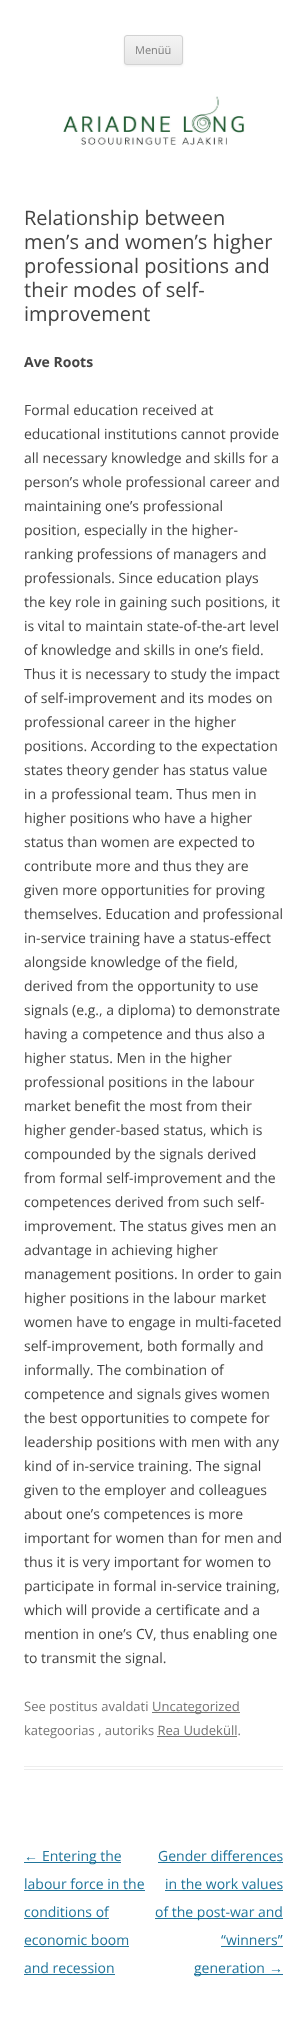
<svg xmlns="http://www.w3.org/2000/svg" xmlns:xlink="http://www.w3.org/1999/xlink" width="307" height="2022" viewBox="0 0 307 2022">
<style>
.cls-1{font:11px Open Sans;fill:#7c7c7c}
.cls-2{font:20px Open Sans;fill:#444444}
.cls-3{font:bold 14px Open Sans;fill:#444444}
.cls-4{font:14px Open Sans;fill:#444444}
.cls-5{font:13px Open Sans;fill:#757575}
.cls-6{font:14px Liberation Sans;fill:#21759b}
.cls-7{font:14px Open Sans;fill:#21759b}
</style>
<defs>
<clipPath id="clip1"><rect x="124" y="35" width="59" height="30" rx="3"/></clipPath>
<linearGradient id="g1" gradientUnits="userSpaceOnUse" x1="154" y1="36" x2="154" y2="64"><stop offset="0" stop-color="#f4f4f4"/><stop offset="1" stop-color="#e6e6e6"/></linearGradient>
</defs>
<rect width="100%" height="100%" fill="#ffffff"/>
<rect fill="#404040" fill-opacity="0.1" filter="blur(1px)" x="124" y="36" width="59" height="30" rx="3"/>
<g clip-path="url(#clip1)">
<rect fill="url(#g1)" x="124" y="36" width="59" height="28"/>
</g>
<rect fill="none" stroke="#d2d2d2" x="124.5" y="35.5" width="58" height="29" rx="2.5"/>
<image xlink:href="image0.png" x="63" y="96" width="182" height="49"/>
<rect fill="#ededed" x="24" y="1766" width="259" height="1"/>
<rect fill="#ededed" x="24" y="1769" width="259" height="1"/>
<rect fill="#757575" x="152" y="1712" width="88" height="1"/>
<rect fill="#757575" x="157" y="1736" width="80" height="1"/>
<rect fill="#21759b" x="24" y="1862" width="97" height="1"/>
<rect fill="#21759b" x="24" y="1890" width="121" height="1"/>
<rect fill="#21759b" x="24" y="1918" width="85" height="1"/>
<rect fill="#21759b" x="24" y="1946" width="105" height="1"/>
<rect fill="#21759b" x="24" y="1974" width="91" height="1"/>
<rect fill="#21759b" x="158" y="1862" width="125" height="1"/>
<rect fill="#21759b" x="165" y="1890" width="118" height="1"/>
<rect fill="#21759b" x="155" y="1918" width="128" height="1"/>
<rect fill="#21759b" x="221" y="1946" width="62" height="1"/>
<rect fill="#21759b" x="194" y="1974" width="89" height="1"/>
<text class="cls-1" x="135" y="54">Menüü</text>
<text class="cls-2"><tspan x="24" y="225">Relationship between</tspan><tspan x="24" y="249">men’s and women’s higher</tspan><tspan x="24" y="273">professional positions and</tspan><tspan x="24" y="297">their modes of self-</tspan><tspan x="24" y="321">improvement</tspan></text>
<text class="cls-3" x="24" y="367">Ave Roots</text>
<text class="cls-4"><tspan x="24" y="415">Formal education received at</tspan><tspan x="24" y="439">educational institutions cannot provide</tspan><tspan x="24" y="463">all necessary knowledge and skills for a</tspan><tspan x="24" y="487">person’s whole professional career and</tspan><tspan x="24" y="511">maintaining one’s professional</tspan><tspan x="24" y="535">position, especially in the higher-</tspan><tspan x="24" y="559">ranking professions of managers and</tspan><tspan x="24" y="583">professionals. Since education plays</tspan><tspan x="24" y="607">the key role in gaining such positions, it</tspan><tspan x="24" y="631">is vital to maintain state-of-the-art level</tspan><tspan x="24" y="655">of knowledge and skills in one’s field.</tspan><tspan x="24" y="679">Thus it is necessary to study the impact</tspan><tspan x="24" y="703">of self-improvement and its modes on</tspan><tspan x="24" y="727">professional career in the higher</tspan><tspan x="24" y="751">positions. According to the expectation</tspan><tspan x="24" y="775">states theory gender has status value</tspan><tspan x="24" y="799">in a professional team. Thus men in</tspan><tspan x="24" y="823">higher positions who have a higher</tspan><tspan x="24" y="847">status than women are expected to</tspan><tspan x="24" y="871">contribute more and thus they are</tspan><tspan x="24" y="895">given more opportunities for proving</tspan><tspan x="24" y="919">themselves. Education and professional</tspan><tspan x="24" y="943">in-service training have a status-effect</tspan><tspan x="24" y="967">alongside knowledge of the field,</tspan><tspan x="24" y="991">derived from the opportunity to use</tspan><tspan x="24" y="1015">signals (e.g., a diploma) to demonstrate</tspan><tspan x="24" y="1039">having a competence and thus also a</tspan><tspan x="24" y="1063">higher status. Men in the higher</tspan><tspan x="24" y="1087">professional positions in the labour</tspan><tspan x="24" y="1111">market benefit the most from their</tspan><tspan x="24" y="1135">higher gender-based status, which is</tspan><tspan x="24" y="1159">compounded by the signals derived</tspan><tspan x="24" y="1183">from formal self-improvement and the</tspan><tspan x="24" y="1207">competences derived from such self-</tspan><tspan x="24" y="1231">improvement. The status gives men an</tspan><tspan x="24" y="1255">advantage in achieving higher</tspan><tspan x="24" y="1279">management positions. In order to gain</tspan><tspan x="24" y="1303">higher positions in the labour market</tspan><tspan x="24" y="1327">women have to engage in multi-faceted</tspan><tspan x="24" y="1351">self-improvement, both formally and</tspan><tspan x="24" y="1375">informally. The combination of</tspan><tspan x="24" y="1399">competence and signals gives women</tspan><tspan x="24" y="1423">the best opportunities to compete for</tspan><tspan x="24" y="1447">leadership positions with men with any</tspan><tspan x="24" y="1471">kind of in-service training. The signal</tspan><tspan x="24" y="1495">given to the employer and colleagues</tspan><tspan x="24" y="1519">about one’s competences is more</tspan><tspan x="24" y="1543">important for women than for men and</tspan><tspan x="24" y="1567">thus it is very important for women to</tspan><tspan x="24" y="1591">participate in formal in-service training,</tspan><tspan x="24" y="1615">which will provide a certificate and a</tspan><tspan x="24" y="1639">mention in one’s CV, thus enabling one</tspan><tspan x="24" y="1663">to transmit the signal.</tspan></text>
<text class="cls-5" x="24" y="1711">See postitus avaldati</text>
<text class="cls-5" x="152" y="1711">Uncategorized</text>
<text class="cls-5" x="24" y="1735">kategoorias , autoriks Rea Uudeküll.</text>
<text class="cls-6" x="24" y="1861">←</text>
<text class="cls-7" x="42" y="1861">Entering the</text>
<text class="cls-7" x="24" y="1889">labour force in the</text>
<text class="cls-7" x="24" y="1917">conditions of</text>
<text class="cls-7" x="24" y="1945">economic boom</text>
<text class="cls-7" x="24" y="1973">and recession</text>
<text class="cls-7" x="158" y="1861">Gender differences</text>
<text class="cls-7" x="165" y="1889">in the work values</text>
<text class="cls-7" x="155" y="1917">of the post-war and</text>
<text class="cls-7" x="221" y="1945">“winners”</text>
<text class="cls-7" x="194" y="1973">generation</text>
<text class="cls-6" x="269" y="1973">→</text>
</svg>
